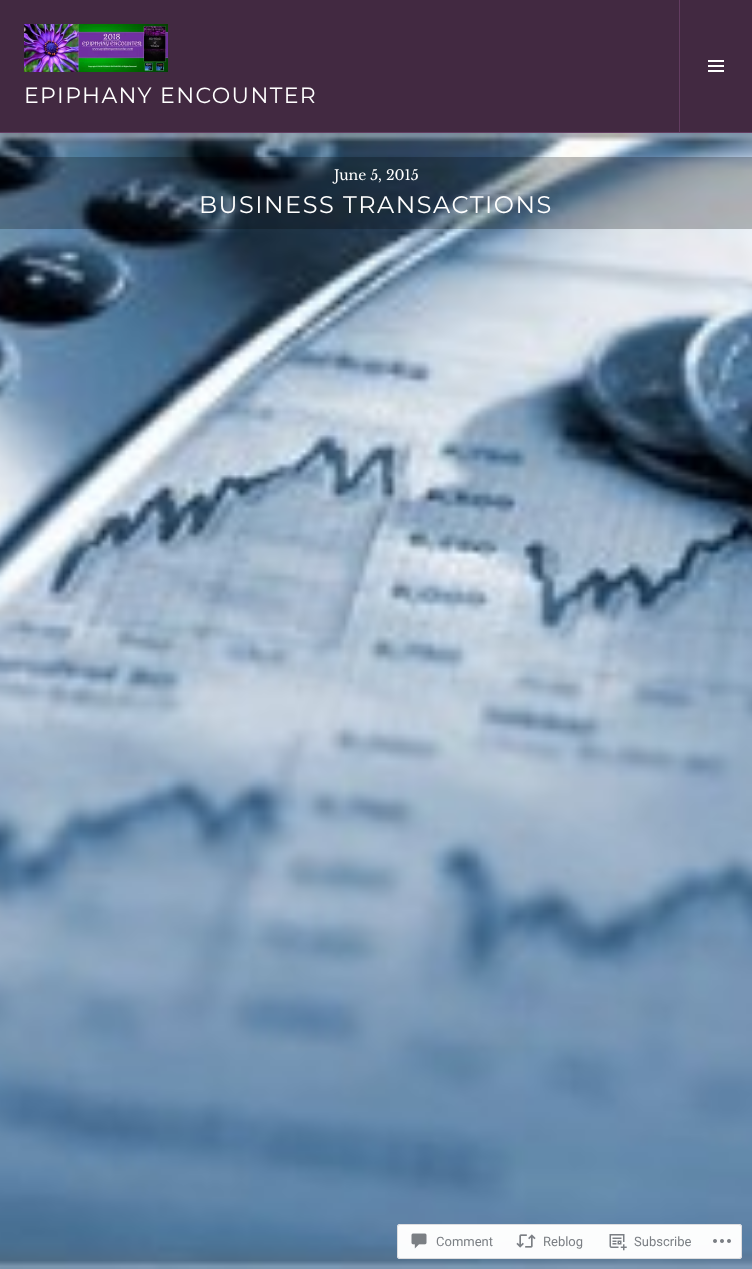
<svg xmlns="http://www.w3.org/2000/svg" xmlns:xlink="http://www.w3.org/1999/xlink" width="752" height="1269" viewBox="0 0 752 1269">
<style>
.cls-1{font:22px Montserrat;letter-spacing:1.4px;fill:#ffffff}
.cls-2{font:14px Libre Baskerville;fill:#ffffff}
.cls-3{font:24px Montserrat;letter-spacing:1.5px;fill:#ffffff}
.cls-4{font:13px Roboto;fill:#7b7f84}
</style>
<rect width="100%" height="100%" fill="#422941"/>
<rect fill="#623c60" x="0" y="132" width="752" height="1"/>
<image xlink:href="image0.png" x="24" y="24" width="144" height="48"/>
<rect fill="#623c60" x="679" y="0" width="1" height="132"/>
<image xlink:href="image1.png" x="708" y="60" width="16" height="12"/>
<image xlink:href="image2.png" x="0" y="133" width="752" height="1136"/>
<rect fill="#000000" fill-opacity="0.25" x="0" y="157" width="752" height="72"/>
<rect fill="#ffffff" fill-opacity="0.98" x="397" y="1224" width="345" height="35" rx="3"/>
<rect fill="none" stroke="#dcdcde" stroke-opacity="0.98" x="397.5" y="1224.5" width="344" height="34" rx="2.5"/>
<image xlink:href="image3.png" x="411" y="1233" width="16" height="16"/>
<image xlink:href="image4.png" x="516" y="1234" width="20" height="14"/>
<image xlink:href="image5.png" x="609" y="1234" width="18" height="17"/>
<image xlink:href="image6.png" x="713" y="1239" width="18" height="4"/>
<text class="cls-1" x="24" y="103">EPIPHANY ENCOUNTER</text>
<text class="cls-2" x="334" y="180">June 5, 2015</text>
<text class="cls-3" x="199" y="213">BUSINESS TRANSACTIONS</text>
<text class="cls-4" x="436" y="1246">Comment</text>
<text class="cls-4" x="543" y="1246">Reblog</text>
<text class="cls-4" x="634" y="1246">Subscribe</text>
</svg>
